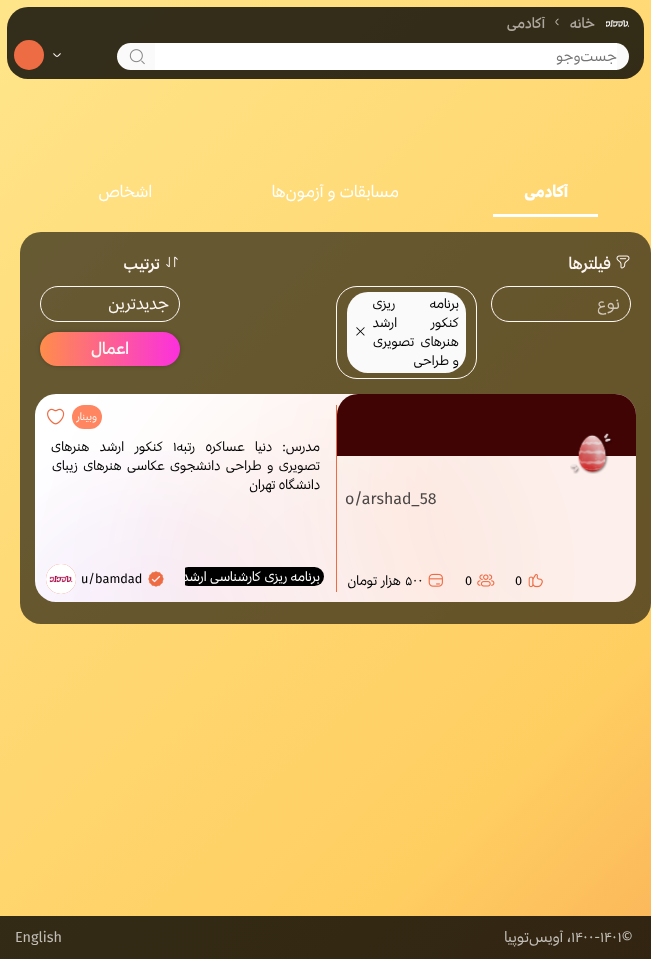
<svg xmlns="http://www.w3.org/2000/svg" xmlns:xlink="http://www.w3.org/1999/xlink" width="651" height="959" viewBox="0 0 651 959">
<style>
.cls-1{font:500 14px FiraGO;direction:rtl;fill:#ada69d}
.cls-2{font:14px FiraGO;direction:rtl;fill:#757575}
.cls-3{font:900 16px FiraGO;direction:rtl;fill:#ffffff}
.cls-4{font:16px FiraGO;direction:rtl;fill:#ffffff}
.cls-5{font:500 16px FiraGO;direction:rtl;fill:#fff8f5}
.cls-6{font:16px FiraGO;direction:rtl;fill:#d1c7b9}
.cls-7{font:12.8px FiraGO;direction:rtl;fill:#000000}
.cls-8{font:16px FiraGO;direction:rtl;fill:#fff8f5}
.cls-9{font:10px FiraGO;direction:rtl;fill:#fff8f5}
.cls-10{font:12.8px FiraGO;fill:#000000}
.cls-11{font:16px FiraGO;fill:#4c4745}
.cls-12{font:12.8px FiraGO;direction:rtl;fill:#ffffff}
.cls-13{font:14.5px FiraGO;fill:#c2beb8}
.cls-14{font:14.5px FiraGO;direction:rtl;fill:#c2beb8}
</style>
<defs>
<linearGradient id="g1" gradientUnits="userSpaceOnUse" x1="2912" y1="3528" x2="-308" y2="308"><stop offset="0" stop-color="#1f214d"/><stop offset="0.2" stop-color="#50366f"/><stop offset="0.4" stop-color="#bf3475"/><stop offset="0.6" stop-color="#ee6c45"/><stop offset="0.8" stop-color="#ffce61"/><stop offset="1" stop-color="#ffe58a"/></linearGradient>
<linearGradient id="g2" gradientUnits="userSpaceOnUse" x1="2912" y1="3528" x2="-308" y2="308"><stop offset="0" stop-color="#06070f"/><stop offset="0.2" stop-color="#100b16"/><stop offset="0.4" stop-color="#260a17"/><stop offset="0.6" stop-color="#30160e"/><stop offset="0.8" stop-color="#332913"/><stop offset="1" stop-color="#332e1c"/></linearGradient>
<linearGradient id="g3" gradientUnits="userSpaceOnUse" x1="40" y1="349" x2="460" y2="349"><stop offset="0" stop-color="#ff8d4a"/><stop offset="0.33" stop-color="#fb31dc"/><stop offset="0.67" stop-color="#e13aff"/><stop offset="1" stop-color="#6b8dd6"/></linearGradient>
<clipPath id="clip1"><rect x="185" y="564" width="139" height="30"/></clipPath>
</defs>
<rect width="100%" height="100%" fill="#ffffff"/>
<rect fill="url(#g1)" x="0" y="0" width="651" height="916"/>
<rect fill="url(#g2)" x="0" y="916" width="651" height="43"/>
<rect fill="#000000" fill-opacity="0.8" x="7" y="7" width="637" height="72" rx="21"/>
<image xlink:href="image0.png" x="606" y="20" width="23" height="7"/>
<image xlink:href="image1.png" x="555" y="18" width="4" height="8"/>
<rect fill="#fafafa" x="117" y="43" width="512" height="27" rx="13.5"/>
<rect fill="#ffffff" x="155" y="43" width="462" height="27"/>
<image xlink:href="image2.png" x="129" y="49" width="16" height="16"/>
<image xlink:href="image3.png" x="53" y="53" width="8" height="4"/>
<circle fill="#ee6c44" cx="29" cy="55" r="15"/>
<rect fill="#ffffff" x="493" y="214" width="105" height="3"/>
<rect fill="#000000" fill-opacity="0.6" x="20" y="232" width="631" height="392" rx="21"/>
<image xlink:href="image4.png" x="616" y="255" width="14" height="14"/>
<rect fill="none" stroke="#fff8f5" x="491.5" y="286.5" width="139" height="35" rx="17.5"/>
<rect fill="none" stroke="#fff8f5" x="336.5" y="286.5" width="140" height="92" rx="20.5"/>
<rect fill="#fafafa" x="347" y="292" width="119" height="81" rx="21"/>
<image xlink:href="image5.png" x="356" y="327" width="9" height="9"/>
<image xlink:href="image6.png" x="166" y="256" width="12" height="12"/>
<rect fill="none" stroke="#fff8f5" x="40.5" y="286.5" width="139" height="35" rx="17.5"/>
<rect fill="#000000" fill-opacity="0.25" filter="blur(2px)" x="40" y="332" width="140" height="34" rx="17"/>
<rect fill="url(#g3)" x="40" y="332" width="140" height="34" rx="17"/>
<image xlink:href="image7.png" x="35" y="394" width="601" height="208"/>
<rect fill="#ff8661" x="72" y="405" width="30" height="24" rx="12"/>
<image xlink:href="image8.png" x="47" y="408" width="18" height="17"/>
<rect fill="#ee6c44" x="336" y="405" width="1" height="187"/>
<image xlink:href="image9.png" x="337" y="394" width="299" height="62"/>
<image xlink:href="image10.png" x="570" y="433" width="42" height="41"/>
<image xlink:href="image11.png" x="528" y="574" width="15" height="14"/>
<image xlink:href="image12.png" x="477" y="574" width="18" height="13"/>
<image xlink:href="image13.png" x="428" y="573" width="15" height="14"/>
<g clip-path="url(#clip1)">
<rect fill="#000000" x="179" y="567" width="145" height="19" rx="9.5"/>
</g>
<image xlink:href="image14.png" x="148" y="571" width="16" height="16"/>
<circle fill="#ee6c44" cx="61" cy="579" r="15"/>
<image xlink:href="image15.png" x="46" y="564" width="30" height="30"/>
<text class="cls-1" x="595" y="28">خانه</text>
<text class="cls-1" x="545" y="28">آکادمی</text>
<text class="cls-2" x="617" y="61">جست‌وجو</text>
<text class="cls-3" x="568" y="197">آکادمی</text>
<text class="cls-4" x="399" y="197">مسابقات و آزمون‌ها</text>
<text class="cls-4" x="152" y="197">اشخاص</text>
<text class="cls-5" x="611" y="269">فیلترها</text>
<text class="cls-6" x="620" y="309">نوع</text>
<text class="cls-7"><tspan x="459" y="308" word-spacing="31">برنامه ریزی</tspan><tspan x="459" y="327" word-spacing="30">کنکور ارشد</tspan><tspan x="459" y="346" word-spacing="3">هنرهای تصویری</tspan><tspan x="459" y="365">و طراحی</tspan></text>
<text class="cls-5" x="160" y="269">ترتیب</text>
<text class="cls-8" x="169" y="309">جدیدترین</text>
<text class="cls-5" x="129" y="354">اعمال</text>
<text class="cls-9" x="97" y="420">وبینار</text>
<text class="cls-7" x="320" y="451" word-spacing="7">مدرس: دنیا عساکره رتبه</text>
<text class="cls-10" x="173" y="451">۱</text>
<text class="cls-7" x="163" y="451" word-spacing="7">کنکور ارشد هنرهای</text>
<text class="cls-7"><tspan x="320" y="470" word-spacing="2">تصویری و طراحی دانشجوی عکاسی هنرهای زیبای</tspan><tspan x="320" y="489">دانشگاه تهران</tspan></text>
<text class="cls-11" x="345" y="504">o/arshad_58</text>
<text class="cls-10" x="515" y="585">0</text>
<text class="cls-10" x="465" y="585">0</text>
<text class="cls-10" x="405" y="585">۵۰۰</text>
<text class="cls-7" x="401" y="585">هزار تومان</text>
<g clip-path="url(#clip1)">
<text class="cls-12" x="320" y="581">برنامه ریزی کارشناسی ارشد</text>
</g>
<text class="cls-10" x="81" y="583">u/bamdad</text>
<text class="cls-13" x="571" y="942">۱۴۰۰-۱۴۰۱©</text>
<text class="cls-14" x="571" y="942">، آویس‌توپیا</text>
<text class="cls-13" x="15" y="942">English</text>
</svg>
